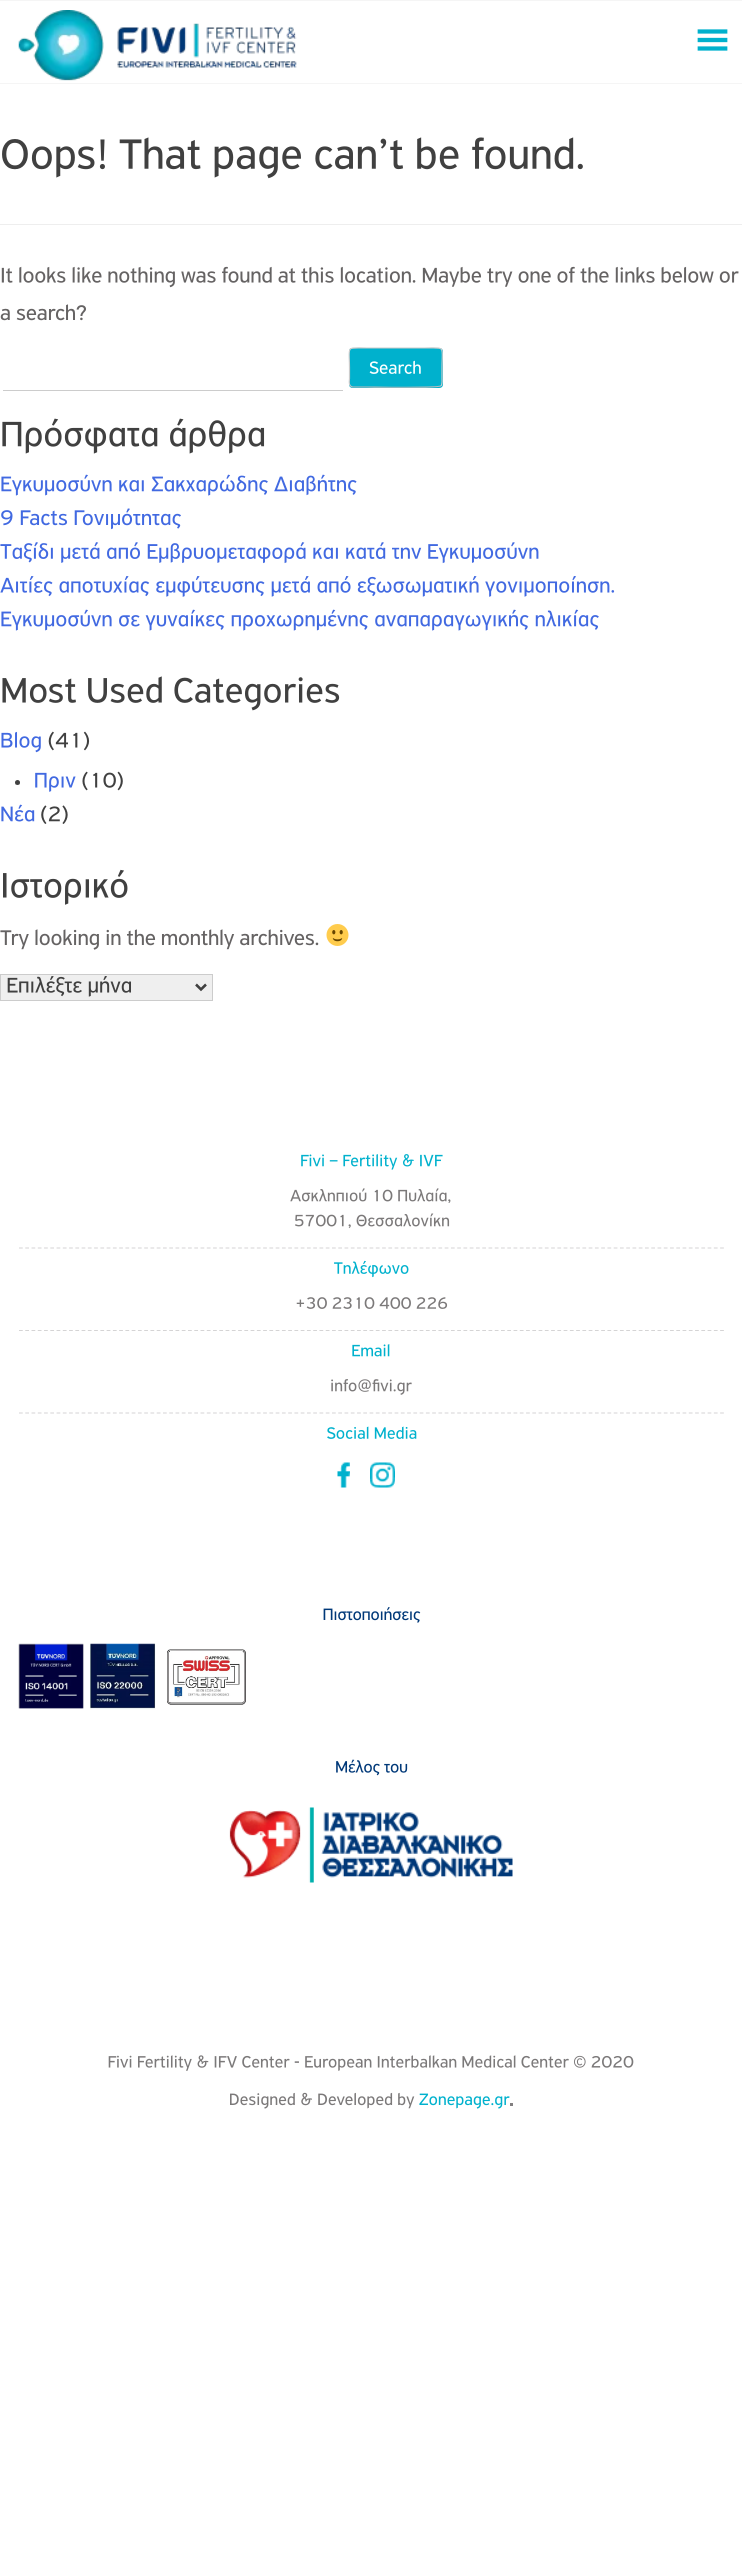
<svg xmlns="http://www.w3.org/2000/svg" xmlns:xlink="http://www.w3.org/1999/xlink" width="742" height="2568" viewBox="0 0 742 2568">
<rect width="100%" height="100%" fill="#ffffff"/>
<rect fill="#f5f5f5" x="0" y="0" width="742" height="1"/>
<rect fill="#f5f5f5" x="0" y="83" width="742" height="1"/>
<image xlink:href="image0.png" x="18" y="10" width="279" height="71"/>
<image xlink:href="image1.png" x="697" y="29" width="31" height="22"/>
<rect fill="#eeeeee" x="0" y="224" width="742" height="1"/>
<image xlink:href="image2.png" x="2" y="137" width="581" height="42"/>
<image xlink:href="image3.png" x="1" y="266" width="738" height="22"/>
<image xlink:href="image4.png" x="0" y="304" width="86" height="17"/>
<rect fill="#00b1cd" x="349" y="348" width="94" height="40" rx="4"/>
<path fill="none" stroke="#bbbbbb" stroke-width="1.2" d="M441 386H440.5C438.5 388 375 387 367 387H352.5L350.5 386"/>
<path fill="none" stroke="#cccccc" stroke-width="1.2" d="M350.5 386C348.5 384 349.5 380 349.5 378.5V367.5C349.5 345 345 348 367 348H424.5C446.5 348 442 345 442 367.5V378.5C442 380 442.5 384 441 386"/>
<image xlink:href="image5.png" x="369" y="360" width="52" height="14"/>
<rect fill="#cccccc" x="3" y="390" width="340" height="1"/>
<image xlink:href="image6.png" x="2" y="418" width="263" height="36"/>
<image xlink:href="image7.png" x="1" y="474" width="356" height="22"/>
<image xlink:href="image8.png" x="1" y="508" width="180" height="22"/>
<image xlink:href="image9.png" x="0" y="542" width="539" height="22"/>
<image xlink:href="image10.png" x="0" y="576" width="615" height="21"/>
<image xlink:href="image11.png" x="1" y="609" width="598" height="22"/>
<image xlink:href="image12.png" x="2" y="676" width="338" height="35"/>
<image xlink:href="image13.png" x="1" y="731" width="40" height="22"/>
<image xlink:href="image14.png" x="48" y="731" width="42" height="20"/>
<circle fill="#404040" cx="17.5" cy="782.5" r="2.5"/>
<image xlink:href="image15.png" x="35" y="772" width="41" height="20"/>
<image xlink:href="image16.png" x="82" y="771" width="41" height="20"/>
<image xlink:href="image17.png" x="1" y="804" width="34" height="18"/>
<image xlink:href="image18.png" x="41" y="805" width="27" height="19"/>
<image xlink:href="image19.png" x="3" y="869" width="125" height="36"/>
<image xlink:href="image20.png" x="0" y="929" width="319" height="21"/>
<image xlink:href="image21.png" x="326" y="924" width="23" height="22"/>
<rect fill="#efefef" stroke="#cccccc" x="0.5" y="974.5" width="212" height="26"/>
<path fill="none" stroke="#404040" stroke-width="2.5" d="M196 984.5L201 989.5L206 984.5"/>
<image xlink:href="image22.png" x="7" y="976" width="124" height="21"/>
<image xlink:href="image23.png" x="301" y="1154" width="142" height="16"/>
<image xlink:href="image24.png" x="290" y="1188" width="161" height="15"/>
<image xlink:href="image25.png" x="295" y="1213" width="155" height="16"/>
<path fill="none" stroke="#d5d4d5" stroke-width="1.2" stroke-dasharray="3.75 2.51" d="M19 1248H724"/>
<image xlink:href="image26.png" x="334" y="1260" width="75" height="18"/>
<image xlink:href="image27.png" x="296" y="1297" width="152" height="12"/>
<path fill="none" stroke="#d5d4d5" stroke-width="1.2" stroke-dasharray="3.75 2.51" d="M19 1330.5H724"/>
<image xlink:href="image28.png" x="352" y="1344" width="38" height="13"/>
<image xlink:href="image29.png" x="331" y="1379" width="81" height="16"/>
<path fill="none" stroke="#d5d4d5" stroke-width="1.2" stroke-dasharray="3.75 2.51" d="M19 1413H724"/>
<image xlink:href="image30.png" x="327" y="1426" width="90" height="13"/>
<image xlink:href="image31.png" x="337" y="1462" width="13" height="26"/>
<image xlink:href="image32.png" x="370" y="1462" width="25" height="26"/>
<image xlink:href="image33.png" x="323" y="1607" width="98" height="16"/>
<image xlink:href="image34.png" x="18" y="1643" width="66" height="66"/>
<image xlink:href="image35.png" x="90" y="1643" width="66" height="67"/>
<image xlink:href="image36.png" x="167" y="1649" width="79" height="56"/>
<image xlink:href="image37.png" x="336" y="1759" width="72" height="17"/>
<image xlink:href="image38.png" x="229" y="1807" width="284" height="76"/>
<image xlink:href="image39.png" x="108" y="2055" width="526" height="16"/>
<image xlink:href="image40.png" x="230" y="2092" width="185" height="17"/>
<image xlink:href="image41.png" x="419" y="2093" width="91" height="16"/>
<rect fill="#827f80" x="510" y="2103" width="3" height="3"/>
</svg>
